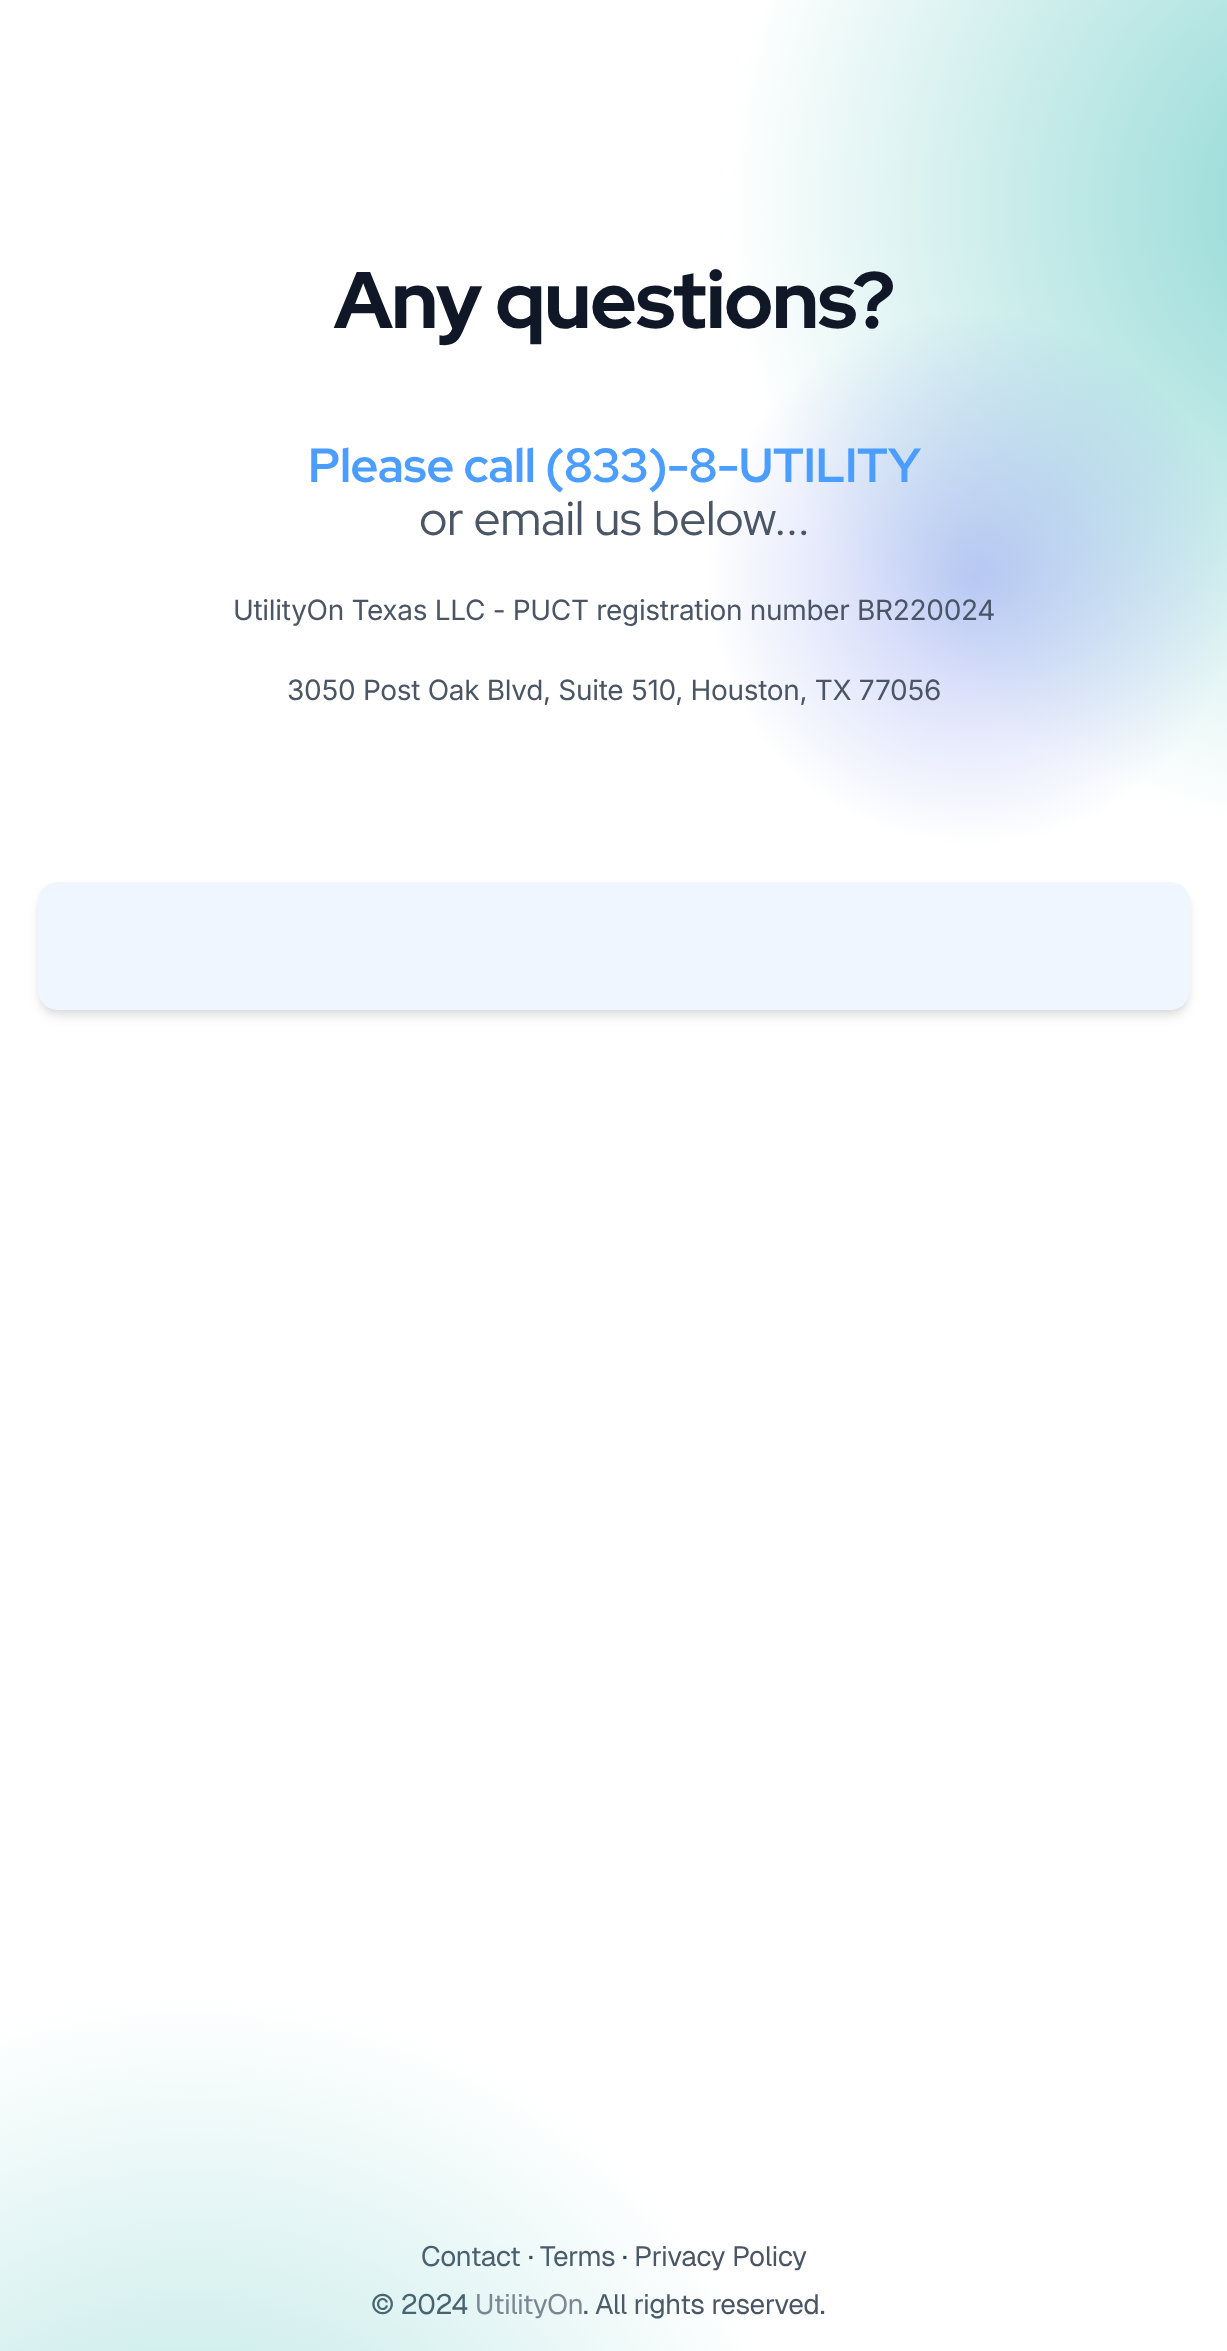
<svg xmlns="http://www.w3.org/2000/svg" xmlns:xlink="http://www.w3.org/1999/xlink" width="1227" height="2351" viewBox="0 0 1227 2351">
<style>
.cls-1{font:800 80px Red Hat Display;letter-spacing:-1.6px;fill:#101828}
.cls-2{font:bold 48px Red Hat Display;letter-spacing:-0.32px;fill:#4b9eff}
.cls-3{font:48px Red Hat Display;letter-spacing:-0.32px;fill:#4a5565}
.cls-4{font:28px Inter;letter-spacing:-0.32px;fill:#4a5565}
.cls-5{font:28px Geist;letter-spacing:-0.32px;fill:#4a5565}
.cls-6{font:28px Geist;letter-spacing:-0.32px;fill:#364153}
.cls-7{font:28px Geist;letter-spacing:-0.32px;fill:#7a8691}
</style>
<defs>
<radialGradient id="g1" gradientUnits="userSpaceOnUse" cx="1356" cy="204" r="630"><stop offset="0" stop-color="#89d6d2"/><stop offset="1" stop-color="#ffffff"/></radialGradient>
<radialGradient id="g2" gradientUnits="userSpaceOnUse" cx="974" cy="578" r="268"><stop offset="0" stop-color="#667eea" stop-opacity="0.4"/><stop offset="1" stop-color="#667eea" stop-opacity="0"/></radialGradient>
<radialGradient id="g3" gradientUnits="userSpaceOnUse" cx="192" cy="2624" r="630"><stop offset="0" stop-color="#3abab4" stop-opacity="0.4"/><stop offset="1" stop-color="#3abab4" stop-opacity="0"/></radialGradient>
</defs>
<rect width="100%" height="100%" fill="#ffffff"/>
<circle fill="url(#g1)" cx="1356" cy="204" r="800"/>
<circle fill="url(#g2)" cx="974" cy="578" r="340"/>
<rect fill="#000000" fill-opacity="0.1" filter="blur(4px)" x="42" y="890" width="1144" height="120" rx="16"/>
<rect fill="#000000" fill-opacity="0.1" filter="blur(6px)" x="40" y="892" width="1148" height="124" rx="18"/>
<rect fill="#eff6ff" x="38" y="882" width="1152" height="128" rx="20"/>
<text class="cls-1" x="334" y="328">Any questions?</text>
<text class="cls-2" x="308" y="482">Please call (833)-8-UTILITY</text>
<text class="cls-3" x="419" y="535">or email us below...</text>
<text class="cls-4" x="233" y="620">UtilityOn Texas LLC - PUCT registration number BR220024</text>
<text class="cls-4" x="287" y="700">3050 Post Oak Blvd, Suite 510, Houston, TX 77056</text>
<text class="cls-5" x="421" y="2266">Contact</text>
<text class="cls-6" x="528" y="2266">·</text>
<text class="cls-5" x="540" y="2266">Terms</text>
<text class="cls-6" x="622" y="2266">·</text>
<text class="cls-5" x="634" y="2266">Privacy Policy</text>
<text class="cls-5" x="371" y="2314">© 2024</text>
<text class="cls-5" x="583" y="2314">. All rights reserved.</text>
<circle fill="url(#g3)" cx="192" cy="2624" r="800"/>
<text class="cls-7" x="475" y="2314">UtilityOn</text>
</svg>
